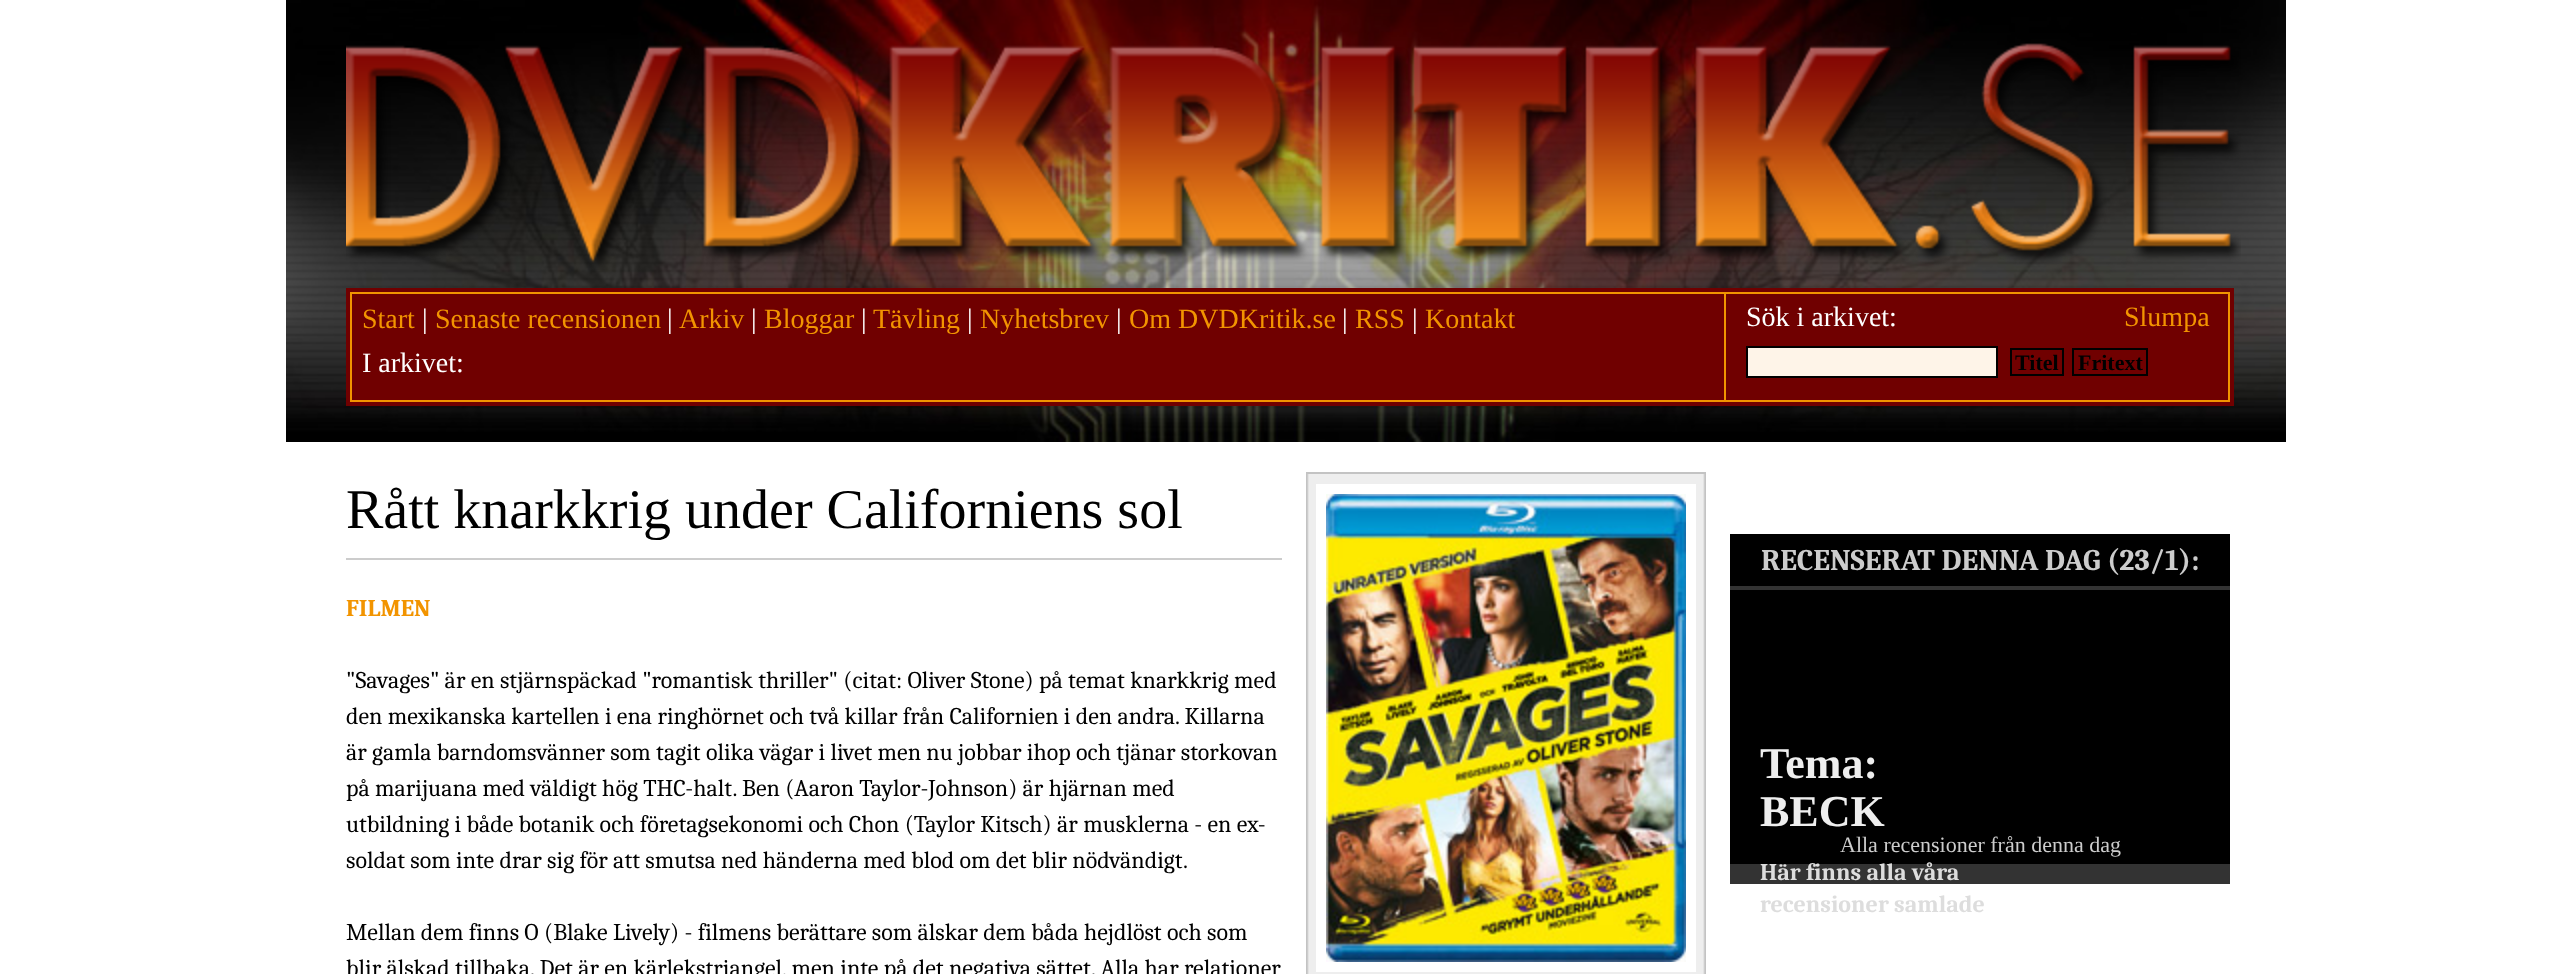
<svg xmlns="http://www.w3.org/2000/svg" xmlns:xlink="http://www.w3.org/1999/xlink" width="2572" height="974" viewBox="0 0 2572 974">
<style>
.cls-1{font:28px Liberation Serif;fill:#f29400}
.cls-2{font:28px Liberation Serif;fill:#ffffff}
.cls-3{font:bold 22px Liberation Serif;fill:#000000}
.cls-4{font:56px Liberation Serif;fill:#000000}
.cls-5{font:bold 24px Caladea;fill:#f29400}
.cls-6{font:24px Caladea;fill:#000000}
.cls-7{font:bold 30px Caladea;fill:#cccccc}
.cls-8{font:22px Liberation Serif;fill:#cccccc}
.cls-9{font:bold 44px Liberation Serif;fill:#eeeeee}
.cls-10{font:bold 24px Caladea;fill:#dddddd}
</style>
<rect width="100%" height="100%" fill="#ffffff"/>
<image xlink:href="image0.png" x="286" y="0" width="2000" height="442"/>
<image xlink:href="image1.png" x="346" y="43" width="1895" height="227"/>
<rect fill="#700000" x="346" y="288" width="1888" height="118"/>
<rect fill="none" stroke="#f29400" stroke-width="2" x="351" y="293" width="1878" height="108"/>
<rect fill="#f29400" x="1724" y="294" width="2" height="106"/>
<rect fill="#fef4e8" stroke="#000000" stroke-width="2" x="1747" y="347" width="250" height="30"/>
<rect fill="none" stroke="#000000" stroke-width="2" x="2011" y="349" width="52" height="26"/>
<rect fill="none" stroke="#000000" stroke-width="2" x="2073" y="349" width="74" height="26"/>
<rect fill="#cccccc" x="346" y="558" width="936" height="2"/>
<image xlink:href="image2.png" x="1306" y="474" width="400" height="500"/>
<rect fill="#c3c3c3" x="1306" y="472" width="400" height="2"/>
<rect fill="#ffffff" x="1316" y="484" width="380" height="488"/>
<image xlink:href="image3.png" x="1326" y="494" width="360" height="468"/>
<rect fill="#000000" x="1730" y="534" width="500" height="330"/>
<rect fill="#333333" x="1730" y="864" width="500" height="20"/>
<rect fill="#333333" x="1730" y="586" width="500" height="4"/>
<text class="cls-1" x="362" y="328">Start</text>
<text class="cls-2" x="422" y="328">|</text>
<text class="cls-1" x="435" y="328">Senaste recensionen</text>
<text class="cls-2" x="667" y="328">|</text>
<text class="cls-1" x="679" y="328">Arkiv</text>
<text class="cls-2" x="751" y="328">|</text>
<text class="cls-1" x="764" y="328">Bloggar</text>
<text class="cls-2" x="861" y="328">|</text>
<text class="cls-1" x="873" y="328">Tävling</text>
<text class="cls-2" x="967" y="328">|</text>
<text class="cls-1" x="980" y="328">Nyhetsbrev</text>
<text class="cls-2" x="1116" y="328">|</text>
<text class="cls-1" x="1129" y="328">Om DVDKritik.se</text>
<text class="cls-2" x="1342" y="328">|</text>
<text class="cls-1" x="1355" y="328">RSS</text>
<text class="cls-2" x="1412" y="328">|</text>
<text class="cls-1" x="1425" y="328">Kontakt</text>
<text class="cls-2" x="1746" y="326">Sök i arkivet:</text>
<text class="cls-1" x="2124" y="326">Slumpa</text>
<text class="cls-3" x="2015" y="370">Titel</text>
<text class="cls-3" x="2078" y="370">Fritext</text>
<text class="cls-2" x="362" y="372">I arkivet:</text>
<text class="cls-4" x="346" y="528">Rått knarkkrig under Californiens sol</text>
<text class="cls-5" x="346" y="616">FILMEN</text>
<text class="cls-6"><tspan x="346" y="688">"Savages" är en stjärnspäckad "romantisk thriller" (citat: Oliver Stone) på temat knarkkrig med</tspan><tspan x="346" y="724">den mexikanska kartellen i ena ringhörnet och två killar från Californien i den andra. Killarna</tspan><tspan x="346" y="760">är gamla barndomsvänner som tagit olika vägar i livet men nu jobbar ihop och tjänar storkovan</tspan><tspan x="346" y="796">på marijuana med väldigt hög THC-halt. Ben (Aaron Taylor-Johnson) är hjärnan med</tspan><tspan x="346" y="832">utbildning i både botanik och företagsekonomi och Chon (Taylor Kitsch) är musklerna - en ex-</tspan><tspan x="346" y="868">soldat som inte drar sig för att smutsa ned händerna med blod om det blir nödvändigt.</tspan></text>
<text class="cls-6"><tspan x="346" y="940">Mellan dem finns O (Blake Lively) - filmens berättare som älskar dem båda hejdlöst och som</tspan><tspan x="346" y="976">blir älskad tillbaka. Det är en kärlekstriangel, men inte på det negativa sättet. Alla har relationer</tspan></text>
<text class="cls-7" x="1761" y="570">RECENSERAT DENNA DAG (23/1):</text>
<text class="cls-8" x="1840" y="852">Alla recensioner från denna dag</text>
<text class="cls-9"><tspan x="1760" y="778">Tema:</tspan><tspan x="1760" y="826">BECK</tspan></text>
<text class="cls-10"><tspan x="1760" y="880">Här finns alla våra</tspan><tspan x="1760" y="912">recensioner samlade</tspan></text>
</svg>
